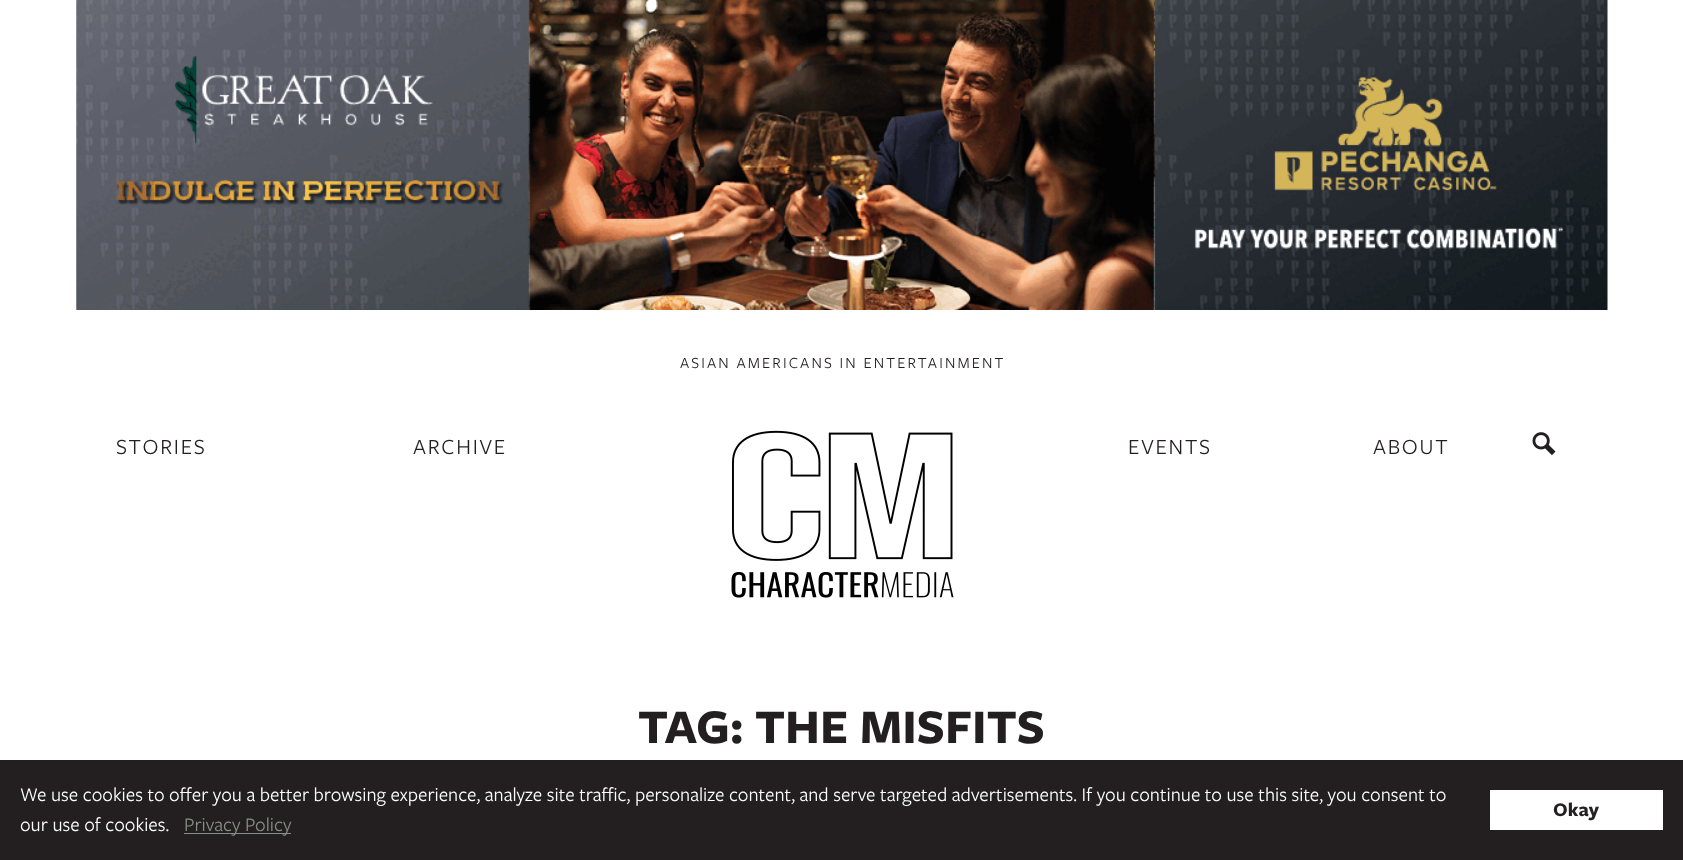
<svg xmlns="http://www.w3.org/2000/svg" xmlns:xlink="http://www.w3.org/1999/xlink" width="1683" height="860" viewBox="0 0 1683 860">
<style>
.cls-1{font:16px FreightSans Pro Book;letter-spacing:2.1px;fill:#231f20}
.cls-2{font:22.5px FreightSans Pro Book;letter-spacing:1.75px;fill:#231f20}
.cls-3{font:bold 50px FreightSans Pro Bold;fill:#231f20}
.cls-4{font:20px FreightSans Pro Book;fill:#ffffff}
.cls-5{font:20px FreightSans Pro Book;fill:#888d82}
.cls-6{font:bold 20px FreightSans Pro Bold;fill:#231f20}
</style>
<rect width="100%" height="100%" fill="#ffffff"/>
<image xlink:href="image0.png" x="76" y="0" width="1532" height="310"/>
<image xlink:href="image1.png" x="731" y="430" width="223" height="168"/>
<image xlink:href="image2.png" x="1532" y="432" width="24" height="24"/>
<rect fill="#231f20" x="0" y="760" width="1683" height="100"/>
<rect fill="#888d82" x="184" y="833" width="107" height="1"/>
<rect fill="#ffffff" x="1490" y="790" width="173" height="40"/>
<text class="cls-1" x="680" y="368">ASIAN AMERICANS IN ENTERTAINMENT</text>
<text class="cls-2" x="116" y="454">STORIES</text>
<text class="cls-2" x="413" y="454">ARCHIVE</text>
<text class="cls-2" x="1128" y="454">EVENTS</text>
<text class="cls-2" x="1373" y="454">ABOUT</text>
<text class="cls-3" x="638" y="743">TAG: THE MISFITS</text>
<text class="cls-4"><tspan x="20" y="801">We use cookies to offer you a better browsing experience, analyze site traffic, personalize content, and serve targeted advertisements. If you continue to use this site, you consent to</tspan><tspan x="20" y="831">our use of cookies.</tspan></text>
<text class="cls-5" x="184" y="831">Privacy Policy</text>
<text class="cls-6" x="1553" y="816">Okay</text>
</svg>
